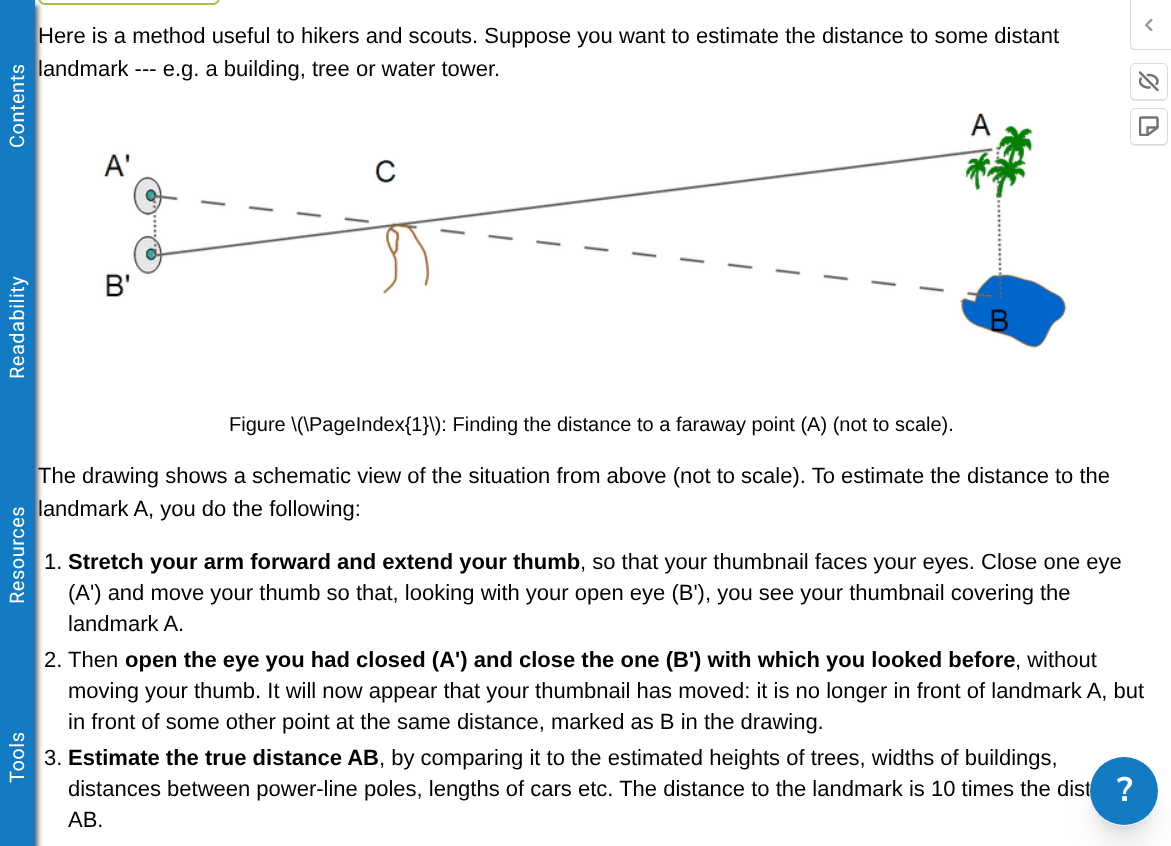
<svg xmlns="http://www.w3.org/2000/svg" xmlns:xlink="http://www.w3.org/1999/xlink" width="1171" height="846" viewBox="0 0 1171 846">
<style>
.cls-1{font:20px Roboto;letter-spacing:0.5px;fill:#ffffff}
.cls-2{font:22px Liberation Sans;fill:#000000}
.cls-3{font:20px Liberation Sans;fill:#000000}
.cls-4{font:bold 22px Liberation Sans;fill:#000000}
.cls-5{font:bold 34px Nunito Sans;fill:#ffffff}
</style>
<rect width="100%" height="100%" fill="#ffffff"/>
<image xlink:href="image0.png" x="38" y="0" width="182" height="5"/>
<rect fill="#000000" fill-opacity="0.6" filter="blur(2.5px)" x="3" y="5" width="35" height="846"/>
<rect fill="#127bc4" x="0" y="0" width="35" height="846"/>
<image xlink:href="image1.png" x="103" y="112" width="964" height="236"/>
<rect fill="#000000" fill-opacity="0.1" filter="blur(6px)" x="1096" y="774" width="55" height="55" rx="27.5"/>
<rect fill="#000000" fill-opacity="0.1" filter="blur(15.5px)" x="1095" y="788" width="58" height="57" rx="28.5"/>
<path fill="#dbdbdb" fill-rule="evenodd" d="M1130 0H1171V50H1135C1132 50 1130 48 1130 45ZM1131 0H1171V49H1135C1133 49 1131 47 1131 45Z"/>
<image xlink:href="image2.png" x="1145" y="18" width="8" height="14"/>
<rect fill="#000000" fill-opacity="0.1" filter="blur(0.5px)" x="1130" y="64" width="38" height="37" rx="5"/>
<rect fill="#ffffff" stroke="#dbdbdb" x="1130.5" y="63.5" width="37" height="36" rx="4.5"/>
<image xlink:href="image3.png" x="1139" y="71" width="20" height="20"/>
<rect fill="#000000" fill-opacity="0.1" filter="blur(0.5px)" x="1130" y="109" width="38" height="37" rx="5"/>
<rect fill="#ffffff" stroke="#dbdbdb" x="1130.5" y="108.5" width="37" height="36" rx="4.5"/>
<image xlink:href="image4.png" x="1139" y="116" width="20" height="20"/>
<text class="cls-1" x="24" y="148" transform="rotate(-90 24 148)">Contents</text>
<text class="cls-1" x="24" y="379" transform="rotate(-90 24 379)">Readability</text>
<text class="cls-1" x="24" y="604" transform="rotate(-90 24 604)">Resources</text>
<text class="cls-1" x="24" y="783" transform="rotate(-90 24 783)">Tools</text>
<text class="cls-2"><tspan x="38" y="43">Here is a method useful to hikers and scouts. Suppose you want to estimate the distance to some distant</tspan><tspan x="38" y="76">landmark --- e.g. a building, tree or water tower.</tspan></text>
<text class="cls-3" x="229" y="431">Figure \(\PageIndex{1}\): Finding the distance to a faraway point (A) (not to scale).</text>
<text class="cls-2"><tspan x="38" y="483">The drawing shows a schematic view of the situation from above (not to scale). To estimate the distance to the</tspan><tspan x="38" y="516">landmark A, you do the following:</tspan></text>
<text class="cls-2" x="44" y="569">1.</text>
<text class="cls-4" x="68" y="569">Stretch your arm forward and extend your thumb</text>
<text class="cls-2" x="580" y="569">, so that your thumbnail faces your eyes. Close one eye</text>
<text class="cls-2"><tspan x="68" y="600">(A') and move your thumb so that, looking with your open eye (B'), you see your thumbnail covering the</tspan><tspan x="68" y="631">landmark A.</tspan></text>
<text class="cls-2" x="44" y="667">2. Then</text>
<text class="cls-4" x="125" y="667">open the eye you had closed (A') and close the one (B') with which you looked before</text>
<text class="cls-2" x="1015" y="667">, without</text>
<text class="cls-2"><tspan x="68" y="698">moving your thumb. It will now appear that your thumbnail has moved: it is no longer in front of landmark A, but</tspan><tspan x="68" y="729">in front of some other point at the same distance, marked as B in the drawing.</tspan></text>
<text class="cls-2" x="44" y="765">3.</text>
<text class="cls-4" x="68" y="765">Estimate the true distance AB</text>
<text class="cls-2" x="379" y="765">, by comparing it to the estimated heights of trees, widths of buildings,</text>
<text class="cls-2"><tspan x="68" y="796">distances between power-line poles, lengths of cars etc. The distance to the landmark is 10 times the dist</tspan><tspan x="68" y="827">AB.</tspan></text>
<circle fill="#127bc4" stroke="#ffffff" cx="1124" cy="791" r="34.5"/>
<text class="cls-5" x="1117" y="801">?</text>
</svg>
